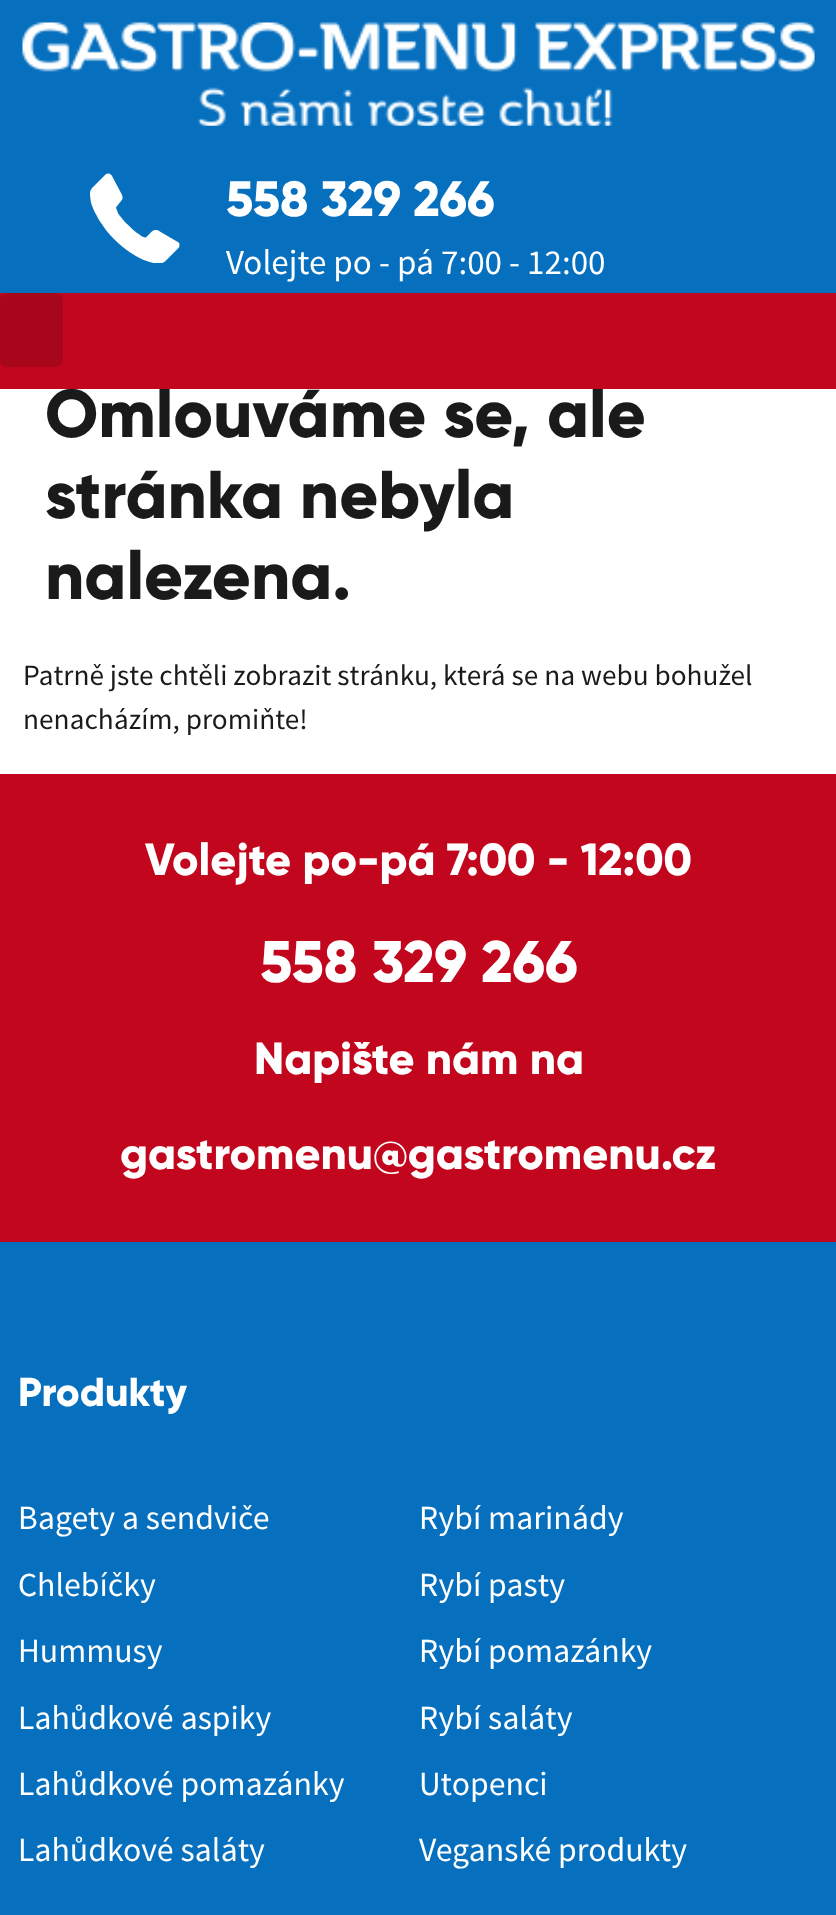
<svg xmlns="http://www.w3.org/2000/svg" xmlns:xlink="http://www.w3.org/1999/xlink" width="836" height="1915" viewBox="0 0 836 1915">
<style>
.cls-1{font:800 49.5px Gilroy;fill:#ffffff}
.cls-2{font:35.1px Source Sans Pro;fill:#ffffff}
.cls-3{font:800 67.5px Gilroy;fill:#1a1a1a}
.cls-4{font:29.25px Source Sans Pro;fill:#1a1a1a}
.cls-5{font:800 45px Gilroy;fill:#ffffff}
.cls-6{font:800 58.5px Gilroy;fill:#ffffff}
.cls-7{font:800 40.5px Gilroy;fill:#ffffff}
.cls-8{font:33.75px Source Sans Pro;fill:#ffffff}
</style>
<rect width="100%" height="100%" fill="#ffffff"/>
<rect fill="#0670bf" x="0" y="0" width="836" height="293"/>
<image xlink:href="image0.png" x="22" y="22" width="793" height="104"/>
<image xlink:href="image1.png" x="90" y="173" width="90" height="90"/>
<rect fill="#c1061d" x="0" y="774" width="836" height="468"/>
<rect fill="#0670bf" x="0" y="1242" width="836" height="673"/>
<text class="cls-1" x="226" y="216">558 329 266</text>
<text class="cls-2" x="226" y="274">Volejte po - pá 7:00 - 12:00</text>
<text class="cls-3" x="45" y="437">Omlouváme se, ale</text>
<rect fill="#c1061d" x="0" y="293" width="836" height="96"/>
<rect fill="#a8071b" x="0" y="293" width="63" height="74" rx="7"/>
<text class="cls-3"><tspan x="45" y="518">stránka nebyla</tspan><tspan x="45" y="599">nalezena.</tspan></text>
<text class="cls-4"><tspan x="23" y="685">Patrně jste chtěli zobrazit stránku, která se na webu bohužel</tspan><tspan x="23" y="729">nenacházím, promiňte!</tspan></text>
<text class="cls-5" x="145" y="875">Volejte po-pá 7:00 - 12:00</text>
<text class="cls-6" x="260" y="982">558 329 266</text>
<text class="cls-5" x="254" y="1074">Napište nám na</text>
<text class="cls-5" x="120" y="1169">gastromenu@gastromenu.cz</text>
<text class="cls-7" x="18" y="1406">Produkty</text>
<text class="cls-8"><tspan x="18" y="1529">Bagety a sendviče</tspan><tspan x="18" y="1596">Chlebíčky</tspan><tspan x="18" y="1662">Hummusy</tspan><tspan x="18" y="1729">Lahůdkové aspiky</tspan><tspan x="18" y="1795">Lahůdkové pomazánky</tspan><tspan x="18" y="1861">Lahůdkové saláty</tspan></text>
<text class="cls-8"><tspan x="419" y="1529">Rybí marinády</tspan><tspan x="419" y="1596">Rybí pasty</tspan><tspan x="419" y="1662">Rybí pomazánky</tspan><tspan x="419" y="1729">Rybí saláty</tspan><tspan x="419" y="1795">Utopenci</tspan><tspan x="419" y="1861">Veganské produkty</tspan></text>
</svg>
